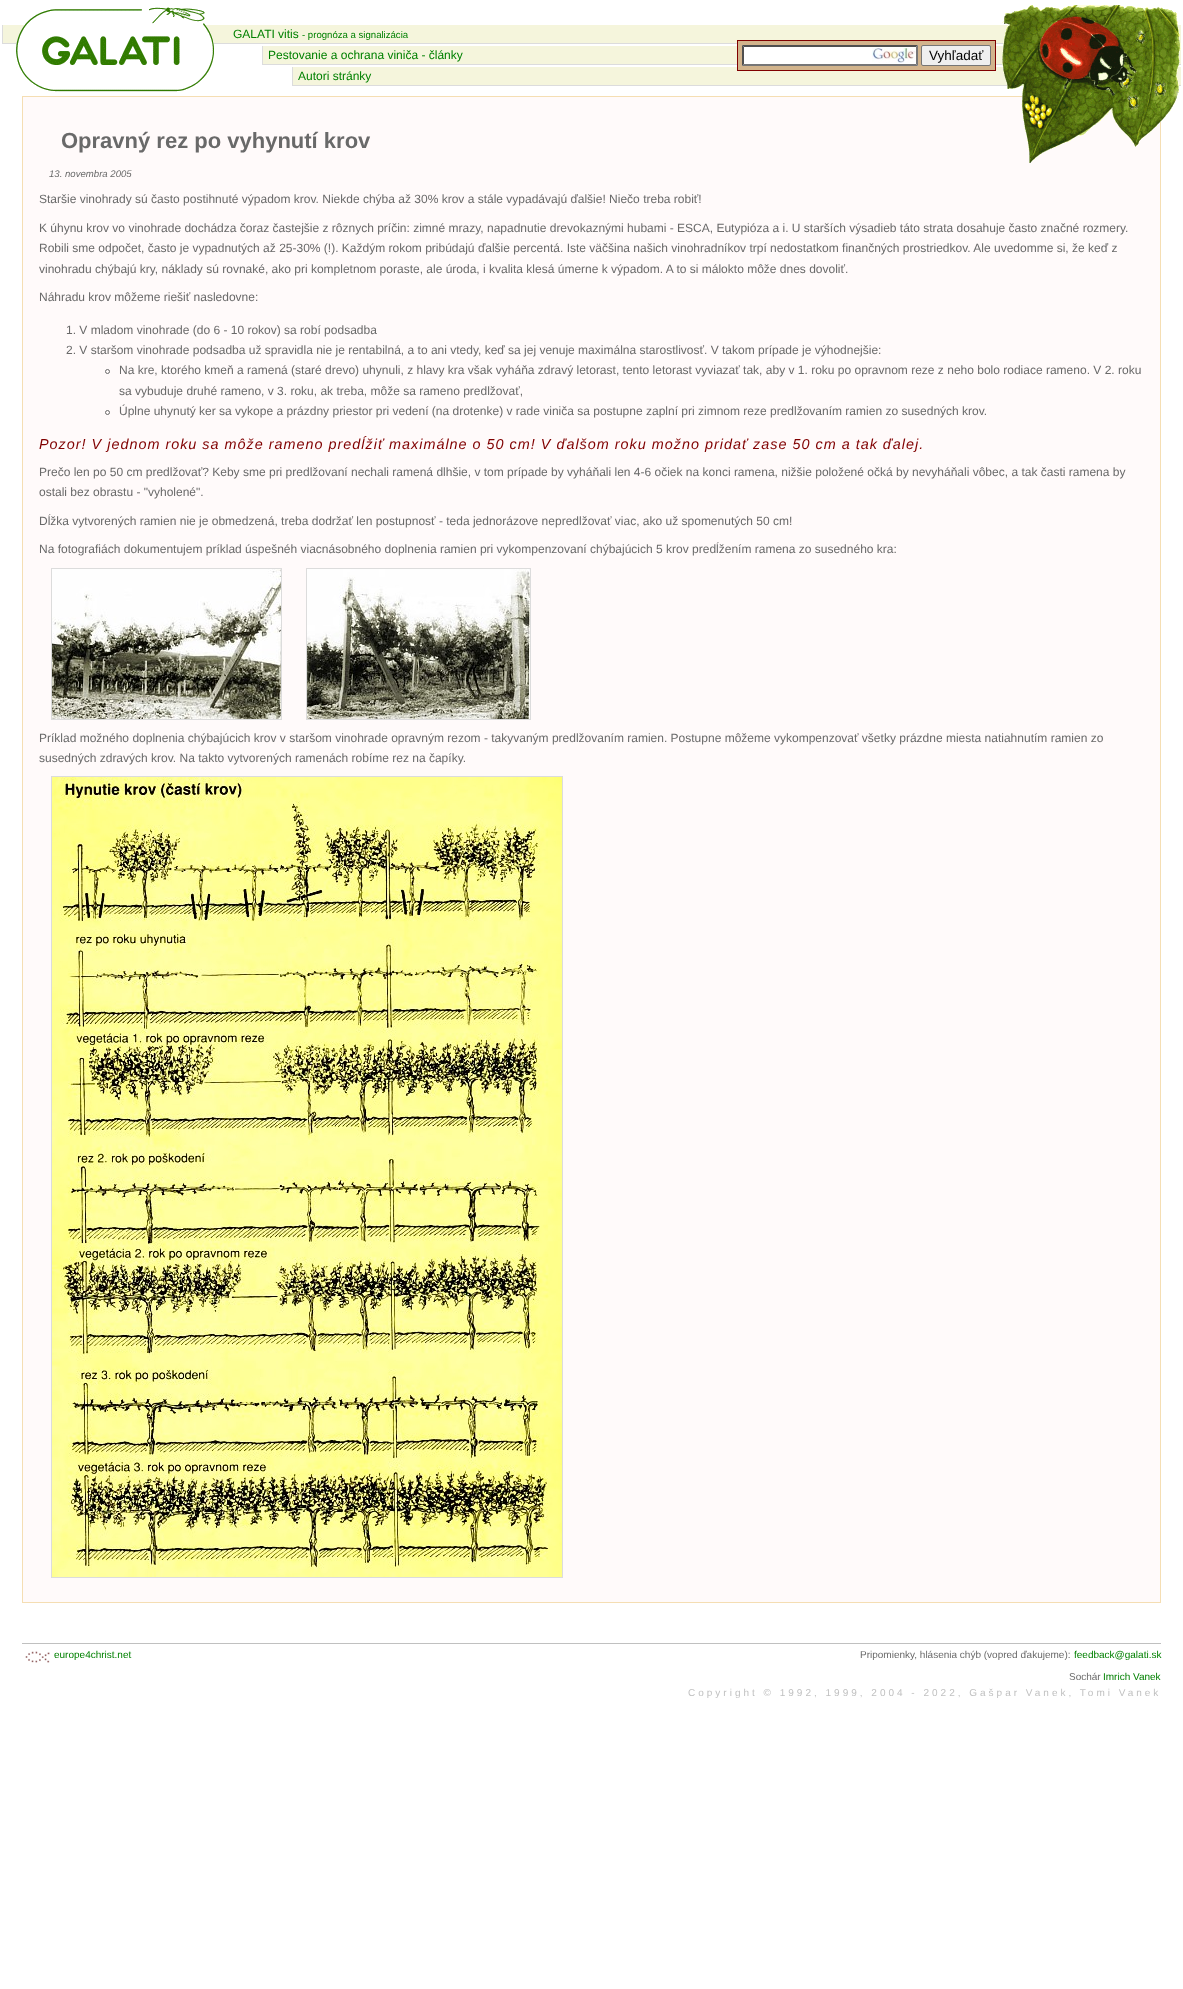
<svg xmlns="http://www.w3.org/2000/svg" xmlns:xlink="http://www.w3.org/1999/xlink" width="1183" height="1989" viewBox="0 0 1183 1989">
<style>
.cls-1{font:12px Liberation Sans;fill:#008000}
.cls-2{font:9.6px Liberation Sans;fill:#008000}
.cls-3{font:13.5px Liberation Sans;fill:#000000}
.cls-4{font:bold 22px Liberation Sans;fill:#696969}
.cls-5{font:italic 9.6px Liberation Sans;fill:#696969}
.cls-6{font:12px Liberation Sans;fill:#696969}
.cls-7{font:italic 14.4px Liberation Sans;letter-spacing:1px;fill:#800000}
.cls-8{font:10px Liberation Sans;fill:#008000}
.cls-9{font:10px Liberation Sans;fill:#696969}
.cls-10{font:10px Liberation Sans;letter-spacing:3px;fill:#c0c0c0}
</style>
<rect width="100%" height="100%" fill="#ffffff"/>
<rect fill="#f5f5dc" x="3" y="25" width="1178" height="18"/>
<rect fill="#dcdcdc" x="2" y="43" width="1001" height="1"/>
<image xlink:href="image0.png" x="16" y="7" width="198" height="85"/>
<rect fill="#dcdcdc" x="2" y="25" width="1" height="19"/>
<rect fill="#f5f5dc" x="263" y="46" width="918" height="18"/>
<rect fill="#dcdcdc" x="262" y="64" width="919" height="1"/>
<rect fill="#dcdcdc" x="262" y="46" width="1" height="19"/>
<rect fill="#f5f5dc" x="293" y="67" width="888" height="18"/>
<rect fill="#dcdcdc" x="292" y="85" width="889" height="1"/>
<rect fill="#dcdcdc" x="292" y="67" width="1" height="19"/>
<rect fill="#d2b48c" stroke="#800000" x="737.5" y="40.5" width="258" height="30"/>
<rect fill="#ffffff" x="742" y="45" width="176" height="21"/>
<image xlink:href="image1.png" x="872" y="48" width="44" height="15"/>
<path fill="#4f4f4f" d="M742 45H918L916 47H744Z"/>
<path fill="#767676" d="M918 45V66L916 64V47Z"/>
<path fill="#767676" d="M918 66H742L744 64H916Z"/>
<path fill="#4f4f4f" d="M742 66V45L744 47V64Z"/>
<rect fill="#efefef" stroke="#767676" x="921.5" y="45.5" width="69" height="20" rx="1.5"/>
<rect fill="#fffafa" stroke="#f5deb3" x="22.5" y="96.5" width="1138" height="1506"/>
<image xlink:href="image2.png" x="1002" y="5" width="179" height="158"/>
<circle fill="none" stroke="#696969" cx="107.5" cy="371.5" r="2"/>
<circle fill="none" stroke="#696969" cx="107.5" cy="412.5" r="2"/>
<rect fill="none" stroke="#dcdcdc" x="51.5" y="568.5" width="230" height="151"/>
<image xlink:href="image3.png" x="52" y="569" width="229" height="150"/>
<rect fill="none" stroke="#dcdcdc" x="306.5" y="568.5" width="224" height="151"/>
<image xlink:href="image4.png" x="307" y="569" width="223" height="150"/>
<rect fill="none" stroke="#dcdcdc" x="51.5" y="776.5" width="511" height="801"/>
<image xlink:href="image5.png" x="52" y="777" width="510" height="800"/>
<rect fill="#c0c0c0" x="22" y="1643" width="1139" height="1"/>
<image xlink:href="image6.png" x="25" y="1651" width="25" height="12"/>
<text class="cls-1" x="233" y="38">GALATI vitis</text>
<text class="cls-2" x="302" y="38">- prognóza a signalizácia</text>
<text class="cls-1" x="268" y="59">Pestovanie a ochrana viniča - články</text>
<text class="cls-1" x="298" y="80">Autori stránky</text>
<text class="cls-3" x="929" y="60">Vyhľadať</text>
<text class="cls-4" x="61" y="148">Opravný rez po vyhynutí krov</text>
<text class="cls-5" x="49" y="177">13. novembra 2005</text>
<text class="cls-6" x="39" y="203">Staršie vinohrady sú často postihnuté výpadom krov. Niekde chýba až 30% krov a stále vypadávajú ďalšie! Niečo treba robiť!</text>
<text class="cls-6"><tspan x="39" y="232">K úhynu krov vo vinohrade dochádza čoraz častejšie z rôznych príčin: zimné mrazy, napadnutie drevokaznými hubami - ESCA, Eutypióza a i. U starších výsadieb táto strata dosahuje často značné rozmery.</tspan><tspan x="39" y="252">Robili sme odpočet, často je vypadnutých až 25-30% (!). Každým rokom pribúdajú ďalšie percentá. Iste väčšina našich vinohradníkov trpí nedostatkom finančných prostriedkov. Ale uvedomme si, že keď z</tspan><tspan x="39" y="273">vinohradu chýbajú kry, náklady sú rovnaké, ako pri kompletnom poraste, ale úroda, i kvalita klesá úmerne k výpadom. A to si málokto môže dnes dovoliť.</tspan></text>
<text class="cls-6" x="39" y="301">Náhradu krov môžeme riešiť nasledovne:</text>
<text class="cls-6"><tspan x="66" y="334">1. V mladom vinohrade (do 6 - 10 rokov) sa robí podsadba</tspan><tspan x="66" y="354">2. V staršom vinohrade podsadba už spravidla nie je rentabilná, a to ani vtedy, keď sa jej venuje maximálna starostlivosť. V takom prípade je výhodnejšie:</tspan></text>
<text class="cls-6"><tspan x="119" y="374">Na kre, ktorého kmeň a ramená (staré drevo) uhynuli, z hlavy kra však vyháňa zdravý letorast, tento letorast vyviazať tak, aby v 1. roku po opravnom reze z neho bolo rodiace rameno. V 2. roku</tspan><tspan x="119" y="395">sa vybuduje druhé rameno, v 3. roku, ak treba, môže sa rameno predlžovať,</tspan><tspan x="119" y="415">Úplne uhynutý ker sa vykope a prázdny priestor pri vedení (na drotenke) v rade viniča sa postupne zaplní pri zimnom reze predlžovaním ramien zo susedných krov.</tspan></text>
<text class="cls-7" x="39" y="449">Pozor! V jednom roku sa môže rameno predĺžiť maximálne o 50 cm! V ďalšom roku možno pridať zase 50 cm a tak ďalej.</text>
<text class="cls-6"><tspan x="39" y="476">Prečo len po 50 cm predlžovať? Keby sme pri predlžovaní nechali ramená dlhšie, v tom prípade by vyháňali len 4-6 očiek na konci ramena, nižšie položené očká by nevyháňali vôbec, a tak časti ramena by</tspan><tspan x="39" y="496">ostali bez obrastu - "vyholené".</tspan></text>
<text class="cls-6" x="39" y="525">Dĺžka vytvorených ramien nie je obmedzená, treba dodržať len postupnosť - teda jednorázove nepredlžovať viac, ako už spomenutých 50 cm!</text>
<text class="cls-6" x="39" y="553">Na fotografiách dokumentujem príklad úspešnéh viacnásobného doplnenia ramien pri vykompenzovaní chýbajúcich 5 krov predĺžením ramena zo susedného kra:</text>
<text class="cls-6"><tspan x="39" y="742">Príklad možného doplnenia chýbajúcich krov v staršom vinohrade opravným rezom - takyvaným predlžovaním ramien. Postupne môžeme vykompenzovať všetky prázdne miesta natiahnutím ramien zo</tspan><tspan x="39" y="762">susedných zdravých krov. Na takto vytvorených ramenách robíme rez na čapíky.</tspan></text>
<text class="cls-8" x="54" y="1658">europe4christ.net</text>
<text class="cls-9" x="860" y="1658">Pripomienky, hlásenia chýb (vopred ďakujeme):</text>
<text class="cls-8" x="1074" y="1658">feedback@galati.sk</text>
<text class="cls-9" x="1069" y="1680">Sochár</text>
<text class="cls-8" x="1103" y="1680">Imrich Vanek</text>
<text class="cls-10" x="688" y="1696">Copyright © 1992, 1999, 2004 - 2022, Gašpar Vanek, Tomi Vanek</text>
</svg>
